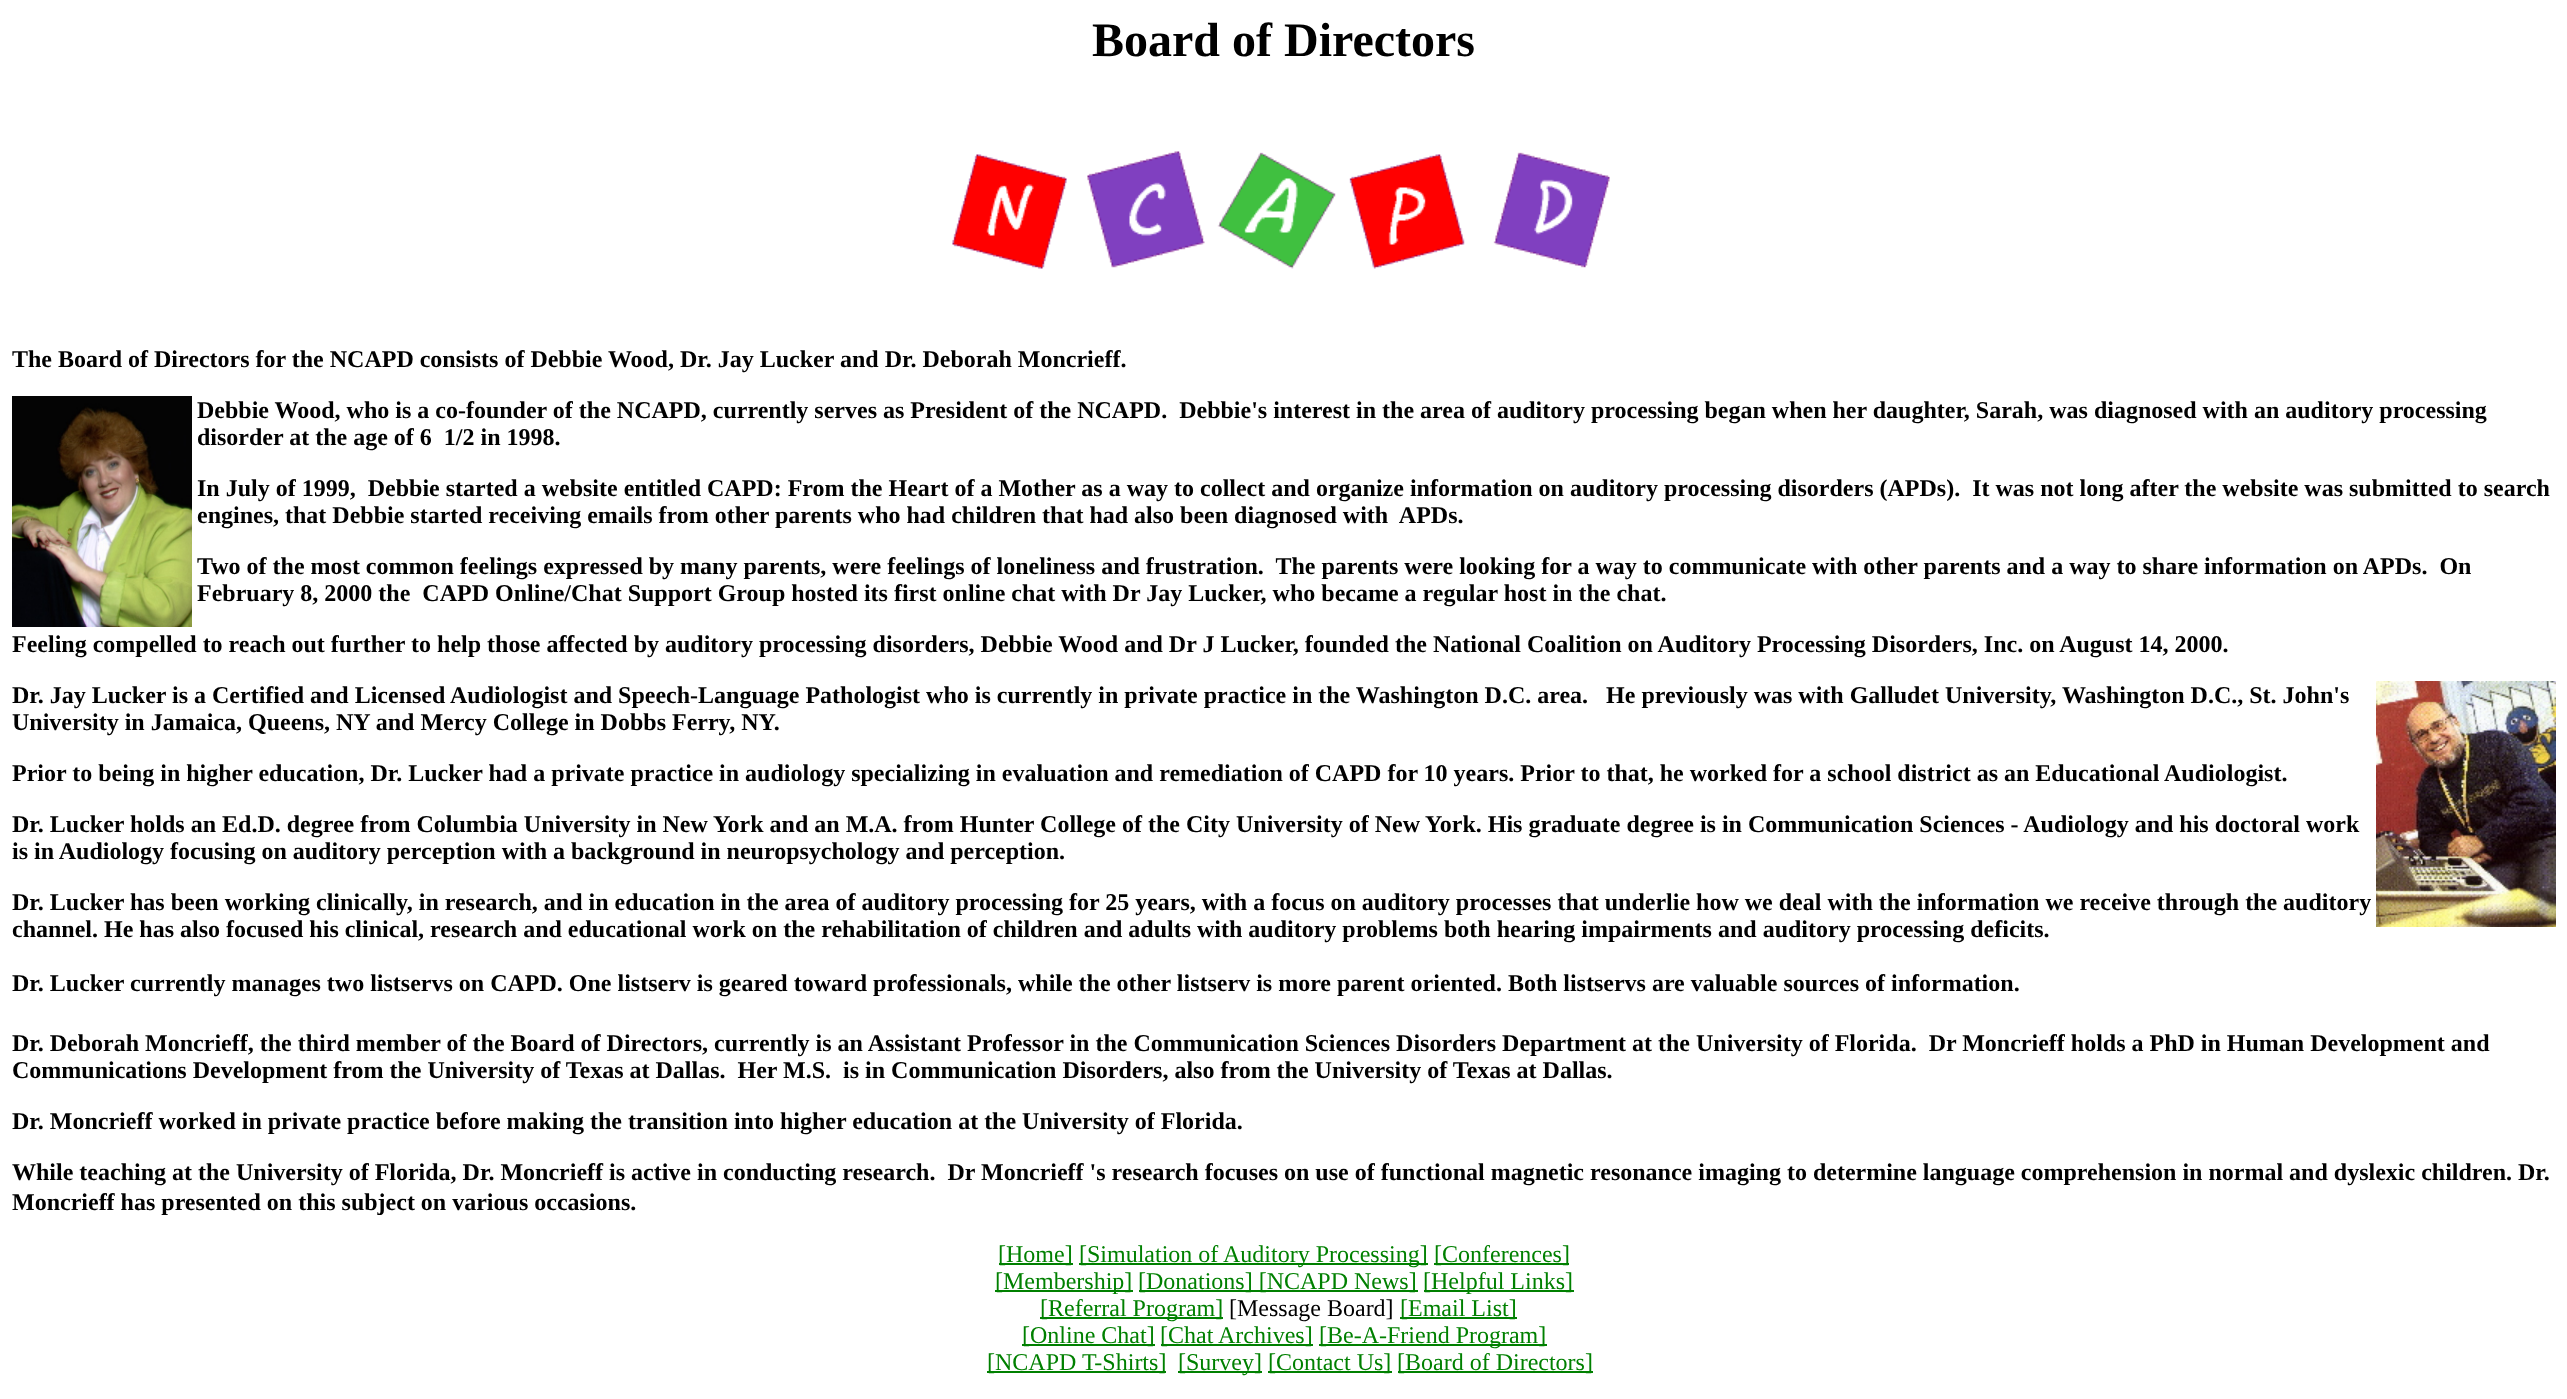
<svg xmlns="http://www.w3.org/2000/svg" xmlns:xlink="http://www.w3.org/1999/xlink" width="2567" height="1399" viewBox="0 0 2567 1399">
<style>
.cls-1{font:bold 48px Liberation Serif;fill:#000000}
.cls-2{font:bold 24px Liberation Serif;fill:#000000}
.cls-3{font:24px Liberation Serif;fill:#008000}
.cls-4{font:24px Liberation Serif;fill:#000000}
</style>
<rect width="100%" height="100%" fill="#ffffff"/>
<image xlink:href="image0.png" x="952" y="151" width="658" height="118"/>
<image xlink:href="image1.png" x="12" y="396" width="180" height="231"/>
<image xlink:href="image2.png" x="2376" y="681" width="180" height="246"/>
<rect fill="#008000" x="999" y="1263" width="74" height="2"/>
<rect fill="#008000" x="1079" y="1263" width="349" height="2"/>
<rect fill="#008000" x="1434" y="1263" width="135" height="2"/>
<rect fill="#008000" x="995" y="1290" width="138" height="2"/>
<rect fill="#008000" x="1139" y="1290" width="279" height="2"/>
<rect fill="#008000" x="1424" y="1290" width="150" height="2"/>
<rect fill="#008000" x="1040" y="1317" width="183" height="2"/>
<rect fill="#008000" x="1400" y="1317" width="117" height="2"/>
<rect fill="#008000" x="1022" y="1344" width="133" height="2"/>
<rect fill="#008000" x="1161" y="1344" width="152" height="2"/>
<rect fill="#008000" x="1319" y="1344" width="228" height="2"/>
<rect fill="#008000" x="987" y="1371" width="179" height="2"/>
<rect fill="#008000" x="1178" y="1371" width="84" height="2"/>
<rect fill="#008000" x="1268" y="1371" width="124" height="2"/>
<rect fill="#008000" x="1398" y="1371" width="195" height="2"/>
<text class="cls-1" x="1092" y="56">Board of Directors</text>
<text class="cls-2" x="12" y="367">The Board of Directors for the NCAPD consists of Debbie Wood, Dr. Jay Lucker and Dr. Deborah Moncrieff.</text>
<text class="cls-2" xml:space="preserve"><tspan x="197" y="418">Debbie Wood, who is a co-founder of the NCAPD, currently serves as President of the NCAPD.  Debbie's interest in the area of auditory processing began when her daughter, Sarah, was diagnosed with an auditory processing</tspan><tspan x="197" y="445">disorder at the age of 6  1/2 in 1998.</tspan></text>
<text class="cls-2" xml:space="preserve"><tspan x="197" y="496">In July of 1999,  Debbie started a website entitled CAPD: From the Heart of a Mother as a way to collect and organize information on auditory processing disorders (APDs).  It was not long after the website was submitted to search</tspan><tspan x="197" y="523">engines, that Debbie started receiving emails from other parents who had children that had also been diagnosed with  APDs.</tspan></text>
<text class="cls-2" xml:space="preserve"><tspan x="197" y="574">Two of the most common feelings expressed by many parents, were feelings of loneliness and frustration.  The parents were looking for a way to communicate with other parents and a way to share information on APDs.  On</tspan><tspan x="197" y="601">February 8, 2000 the  CAPD Online/Chat Support Group hosted its first online chat with Dr Jay Lucker, who became a regular host in the chat.</tspan></text>
<text class="cls-2" x="12" y="652">Feeling compelled to reach out further to help those affected by auditory processing disorders, Debbie Wood and Dr J Lucker, founded the National Coalition on Auditory Processing Disorders, Inc. on August 14, 2000.</text>
<text class="cls-2" xml:space="preserve"><tspan x="12" y="703">Dr. Jay Lucker is a Certified and Licensed Audiologist and Speech-Language Pathologist who is currently in private practice in the Washington D.C. area.   He previously was with Galludet University, Washington D.C., St. John's</tspan><tspan x="12" y="730">University in Jamaica, Queens, NY and Mercy College in Dobbs Ferry, NY.</tspan></text>
<text class="cls-2" x="12" y="781">Prior to being in higher education, Dr. Lucker had a private practice in audiology specializing in evaluation and remediation of CAPD for 10 years. Prior to that, he worked for a school district as an Educational Audiologist.</text>
<text class="cls-2"><tspan x="12" y="832">Dr. Lucker holds an Ed.D. degree from Columbia University in New York and an M.A. from Hunter College of the City University of New York. His graduate degree is in Communication Sciences - Audiology and his doctoral work</tspan><tspan x="12" y="859">is in Audiology focusing on auditory perception with a background in neuropsychology and perception.</tspan></text>
<text class="cls-2"><tspan x="12" y="910">Dr. Lucker has been working clinically, in research, and in education in the area of auditory processing for 25 years, with a focus on auditory processes that underlie how we deal with the information we receive through the auditory</tspan><tspan x="12" y="937">channel. He has also focused his clinical, research and educational work on the rehabilitation of children and adults with auditory problems both hearing impairments and auditory processing deficits.</tspan></text>
<text class="cls-2" x="12" y="991">Dr. Lucker currently manages two listservs on CAPD. One listserv is geared toward professionals, while the other listserv is more parent oriented. Both listservs are valuable sources of information.</text>
<text class="cls-2" xml:space="preserve"><tspan x="12" y="1051">Dr. Deborah Moncrieff, the third member of the Board of Directors, currently is an Assistant Professor in the Communication Sciences Disorders Department at the University of Florida.  Dr Moncrieff holds a PhD in Human Development and</tspan><tspan x="12" y="1078">Communications Development from the University of Texas at Dallas.  Her M.S.  is in Communication Disorders, also from the University of Texas at Dallas.</tspan></text>
<text class="cls-2" x="12" y="1129">Dr. Moncrieff worked in private practice before making the transition into higher education at the University of Florida.</text>
<text class="cls-2" xml:space="preserve"><tspan x="12" y="1180">While teaching at the University of Florida, Dr. Moncrieff is active in conducting research.  Dr Moncrieff 's research focuses on use of functional magnetic resonance imaging to determine language comprehension in normal and dyslexic children. Dr.</tspan><tspan x="12" y="1210">Moncrieff has presented on this subject on various occasions.</tspan></text>
<text class="cls-3" x="998" y="1262">[Home]</text>
<text class="cls-3" x="1079" y="1262">[Simulation of Auditory Processing]</text>
<text class="cls-3" x="1434" y="1262">[Conferences]</text>
<text class="cls-3" x="995" y="1289">[Membership]</text>
<text class="cls-3" x="1138" y="1289">[Donations] [NCAPD News]</text>
<text class="cls-3" x="1423" y="1289">[Helpful Links]</text>
<text class="cls-3" x="1040" y="1316">[Referral Program]</text>
<text class="cls-4" x="1229" y="1316">[Message Board]</text>
<text class="cls-3" x="1400" y="1316">[Email List]</text>
<text class="cls-3" x="1022" y="1343">[Online Chat]</text>
<text class="cls-3" x="1160" y="1343">[Chat Archives]</text>
<text class="cls-3" x="1319" y="1343">[Be-A-Friend Program]</text>
<text class="cls-3" x="987" y="1370">[NCAPD T-Shirts]</text>
<text class="cls-3" x="1178" y="1370">[Survey]</text>
<text class="cls-3" x="1268" y="1370">[Contact Us]</text>
<text class="cls-3" x="1397" y="1370">[Board of Directors]</text>
</svg>
